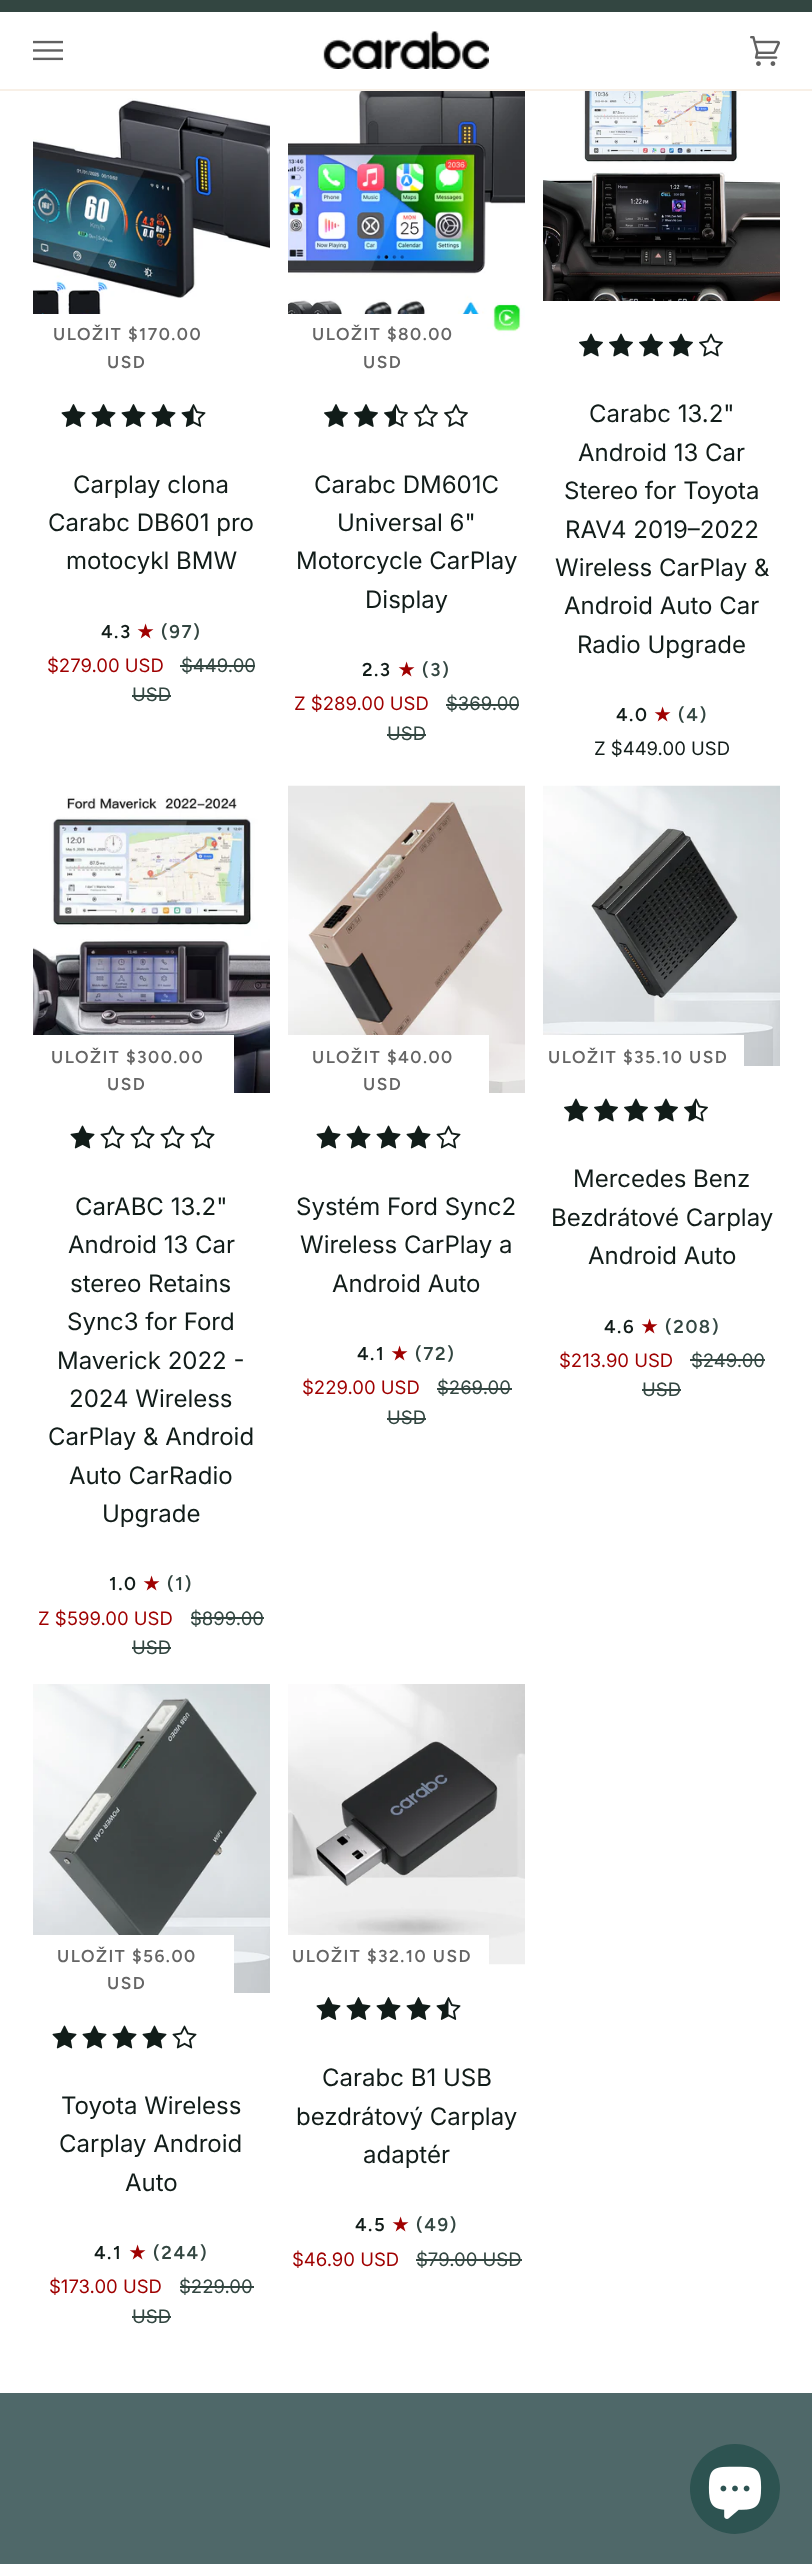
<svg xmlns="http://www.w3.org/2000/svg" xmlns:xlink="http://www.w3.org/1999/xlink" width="812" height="2564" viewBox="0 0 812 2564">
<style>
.cls-1{font:600 17.25px Figtree;letter-spacing:1.5px;fill:#656565}
.cls-2{font:24px Inter;fill:#111c19}
.cls-3{font:600 18.5px Figtree;letter-spacing:1.5px;fill:#111c19}
.cls-4{font:bold 18.5px DejaVu Sans;letter-spacing:1.5px;fill:#9f0000}
.cls-5{font:600 18.5px Figtree;letter-spacing:1.5px;fill:#334641}
.cls-6{font:18.5px Inter;fill:#9f0000}
.cls-7{font:18.5px Inter;fill:#334641}
.cls-8{font:18.5px Inter;fill:#111c19}
</style>
<rect width="100%" height="100%" fill="#ffffff"/>
<rect fill="#f8f0e7" x="0" y="89" width="812" height="2"/>
<rect fill="#334641" x="0" y="0" width="812" height="12"/>
<image xlink:href="image0.png" x="33" y="40" width="30" height="21"/>
<image xlink:href="image1.png" x="323" y="31" width="166" height="38"/>
<image xlink:href="image2.png" x="750" y="36" width="30" height="30"/>
<image xlink:href="image3.png" x="33" y="98" width="237" height="265"/>
<rect fill="#ffffff" x="33" y="314" width="68" height="49"/>
<image xlink:href="image4.png" x="61" y="404" width="25" height="23"/>
<image xlink:href="image4.png" x="91" y="404" width="25" height="23"/>
<image xlink:href="image4.png" x="121" y="404" width="25" height="23"/>
<image xlink:href="image4.png" x="151" y="404" width="25" height="23"/>
<image xlink:href="image5.png" x="181" y="404" width="25" height="23"/>
<rect fill="#334641" x="180" y="665" width="75" height="2"/>
<rect fill="#334641" x="132" y="695" width="39" height="2"/>
<image xlink:href="image6.png" x="288" y="91" width="237" height="246"/>
<rect fill="#ffffff" x="288" y="314" width="199" height="23"/>
<image xlink:href="image7.png" x="324" y="404" width="24" height="23"/>
<image xlink:href="image7.png" x="354" y="404" width="24" height="23"/>
<image xlink:href="image8.png" x="384" y="404" width="24" height="23"/>
<image xlink:href="image9.png" x="414" y="404" width="24" height="23"/>
<image xlink:href="image9.png" x="444" y="404" width="24" height="23"/>
<rect fill="#334641" x="446" y="704" width="73" height="2"/>
<rect fill="#334641" x="387" y="734" width="39" height="2"/>
<image xlink:href="image10.png" x="543" y="91" width="237" height="210"/>
<image xlink:href="image11.png" x="579" y="333" width="24" height="24"/>
<image xlink:href="image11.png" x="609" y="333" width="24" height="24"/>
<image xlink:href="image11.png" x="639" y="333" width="24" height="24"/>
<image xlink:href="image11.png" x="669" y="333" width="24" height="24"/>
<image xlink:href="image12.png" x="699" y="333" width="24" height="24"/>
<image xlink:href="image13.png" x="33" y="796" width="237" height="297"/>
<rect fill="#ffffff" x="33" y="1035" width="201" height="58"/>
<image xlink:href="image14.png" x="70" y="1125" width="25" height="24"/>
<image xlink:href="image15.png" x="100" y="1125" width="25" height="24"/>
<image xlink:href="image15.png" x="130" y="1125" width="25" height="24"/>
<image xlink:href="image15.png" x="160" y="1125" width="25" height="24"/>
<image xlink:href="image15.png" x="190" y="1125" width="25" height="24"/>
<rect fill="#334641" x="191" y="1617" width="73" height="2"/>
<rect fill="#334641" x="132" y="1647" width="39" height="2"/>
<image xlink:href="image16.png" x="288" y="785" width="237" height="308"/>
<rect fill="#ffffff" x="288" y="1035" width="201" height="58"/>
<image xlink:href="image14.png" x="316" y="1125" width="25" height="24"/>
<image xlink:href="image14.png" x="346" y="1125" width="25" height="24"/>
<image xlink:href="image14.png" x="376" y="1125" width="25" height="24"/>
<image xlink:href="image14.png" x="406" y="1125" width="25" height="24"/>
<image xlink:href="image15.png" x="436" y="1125" width="25" height="24"/>
<rect fill="#334641" x="437" y="1388" width="75" height="2"/>
<rect fill="#334641" x="387" y="1418" width="39" height="2"/>
<image xlink:href="image17.png" x="543" y="785" width="237" height="281"/>
<rect fill="#ffffff" x="543" y="1035" width="201" height="31"/>
<image xlink:href="image11.png" x="564" y="1098" width="24" height="24"/>
<image xlink:href="image11.png" x="594" y="1098" width="24" height="24"/>
<image xlink:href="image11.png" x="624" y="1098" width="24" height="24"/>
<image xlink:href="image11.png" x="654" y="1098" width="24" height="24"/>
<image xlink:href="image18.png" x="684" y="1098" width="24" height="24"/>
<rect fill="#334641" x="690" y="1359" width="75" height="2"/>
<rect fill="#334641" x="642" y="1389" width="39" height="2"/>
<image xlink:href="image19.png" x="33" y="1684" width="237" height="309"/>
<rect fill="#ffffff" x="33" y="1935" width="201" height="58"/>
<image xlink:href="image14.png" x="52" y="2025" width="25" height="24"/>
<image xlink:href="image14.png" x="82" y="2025" width="25" height="24"/>
<image xlink:href="image14.png" x="112" y="2025" width="25" height="24"/>
<image xlink:href="image14.png" x="142" y="2025" width="25" height="24"/>
<image xlink:href="image15.png" x="172" y="2025" width="25" height="24"/>
<rect fill="#334641" x="180" y="2286" width="74" height="2"/>
<rect fill="#334641" x="132" y="2316" width="39" height="2"/>
<image xlink:href="image20.png" x="288" y="1684" width="237" height="281"/>
<rect fill="#ffffff" x="288" y="1935" width="201" height="30"/>
<image xlink:href="image4.png" x="316" y="1997" width="25" height="23"/>
<image xlink:href="image4.png" x="346" y="1997" width="25" height="23"/>
<image xlink:href="image4.png" x="376" y="1997" width="25" height="23"/>
<image xlink:href="image4.png" x="406" y="1997" width="25" height="23"/>
<image xlink:href="image5.png" x="436" y="1997" width="25" height="23"/>
<rect fill="#334641" x="416" y="2259" width="106" height="2"/>
<rect fill="#4f6869" x="0" y="2393" width="812" height="171"/>
<circle fill="#2d5351" cx="735" cy="2489" r="45"/>
<image xlink:href="image21.png" x="708" y="2466" width="54" height="53"/>
<text class="cls-1" x="53" y="340">ULOŽIT $170.00</text>
<text class="cls-1" x="107" y="368">USD</text>
<text class="cls-2" x="73" y="493">Carplay clona</text>
<text class="cls-2" x="48" y="531">Carabc DB601 pro</text>
<text class="cls-2" x="66" y="569">motocykl BMW</text>
<text class="cls-3" x="101" y="638">4.3</text>
<text class="cls-4" x="137" y="638">★</text>
<text class="cls-5" x="161" y="638">(97)</text>
<text class="cls-6" x="47" y="672">$279.00 USD</text>
<text class="cls-7" x="181" y="672">$449.00</text>
<text class="cls-7" x="132" y="701">USD</text>
<text class="cls-1" x="312" y="340">ULOŽIT $80.00</text>
<text class="cls-1" x="363" y="368">USD</text>
<text class="cls-2" x="314" y="493">Carabc DM601C</text>
<text class="cls-2" x="337" y="531">Universal 6"</text>
<text class="cls-2" x="296" y="569">Motorcycle CarPlay</text>
<text class="cls-2" x="365" y="608">Display</text>
<text class="cls-3" x="362" y="676">2.3</text>
<text class="cls-4" x="398" y="676">★</text>
<text class="cls-5" x="422" y="676">(3)</text>
<text class="cls-6" x="294" y="710">Z $289.00 USD</text>
<text class="cls-7" x="446" y="710">$369.00</text>
<text class="cls-7" x="387" y="740">USD</text>
<text class="cls-2" x="589" y="422">Carabc 13.2"</text>
<text class="cls-2" x="578" y="461">Android 13 Car</text>
<text class="cls-2" x="564" y="499">Stereo for Toyota</text>
<text class="cls-2" x="565" y="538">RAV4 2019–2022</text>
<text class="cls-2" x="555" y="576">Wireless CarPlay &amp;</text>
<text class="cls-2" x="564" y="614">Android Auto Car</text>
<text class="cls-2" x="577" y="653">Radio Upgrade</text>
<text class="cls-3" x="616" y="721">4.0</text>
<text class="cls-4" x="654" y="721">★</text>
<text class="cls-5" x="678" y="721">(4)</text>
<text class="cls-8" x="594" y="755">Z $449.00 USD</text>
<text class="cls-1" x="51" y="1063">ULOŽIT $300.00</text>
<text class="cls-1" x="107" y="1090">USD</text>
<text class="cls-2" x="75" y="1215">CarABC 13.2"</text>
<text class="cls-2" x="68" y="1253">Android 13 Car</text>
<text class="cls-2" x="70" y="1292">stereo Retains</text>
<text class="cls-2" x="67" y="1330">Sync3 for Ford</text>
<text class="cls-2" x="57" y="1369">Maverick 2022 -</text>
<text class="cls-2" x="69" y="1407">2024 Wireless</text>
<text class="cls-2" x="48" y="1445">CarPlay &amp; Android</text>
<text class="cls-2" x="69" y="1484">Auto CarRadio</text>
<text class="cls-2" x="102" y="1522">Upgrade</text>
<text class="cls-3" x="109" y="1590">1.0</text>
<text class="cls-4" x="143" y="1590">★</text>
<text class="cls-5" x="167" y="1590">(1)</text>
<text class="cls-6" x="38" y="1625">Z $599.00 USD</text>
<text class="cls-7" x="190" y="1625">$899.00</text>
<text class="cls-7" x="132" y="1654">USD</text>
<text class="cls-1" x="312" y="1063">ULOŽIT $40.00</text>
<text class="cls-1" x="363" y="1090">USD</text>
<text class="cls-2" x="296" y="1215">Systém Ford Sync2</text>
<text class="cls-2" x="300" y="1253">Wireless CarPlay a</text>
<text class="cls-2" x="332" y="1292">Android Auto</text>
<text class="cls-3" x="357" y="1360">4.1</text>
<text class="cls-4" x="391" y="1360">★</text>
<text class="cls-5" x="415" y="1360">(72)</text>
<text class="cls-6" x="302" y="1394">$229.00 USD</text>
<text class="cls-7" x="437" y="1394">$269.00</text>
<text class="cls-7" x="387" y="1424">USD</text>
<text class="cls-1" x="548" y="1063">ULOŽIT $35.10 USD</text>
<text class="cls-2" x="573" y="1187">Mercedes Benz</text>
<text class="cls-2" x="551" y="1226">Bezdrátové Carplay</text>
<text class="cls-2" x="588" y="1264">Android Auto</text>
<text class="cls-3" x="604" y="1333">4.6</text>
<text class="cls-4" x="641" y="1333">★</text>
<text class="cls-5" x="665" y="1333">(208)</text>
<text class="cls-6" x="559" y="1367">$213.90 USD</text>
<text class="cls-7" x="691" y="1367">$249.00</text>
<text class="cls-7" x="642" y="1396">USD</text>
<text class="cls-1" x="57" y="1962">ULOŽIT $56.00</text>
<text class="cls-1" x="107" y="1989">USD</text>
<text class="cls-2" x="61" y="2114">Toyota Wireless</text>
<text class="cls-2" x="59" y="2152">Carplay Android</text>
<text class="cls-2" x="125" y="2191">Auto</text>
<text class="cls-3" x="94" y="2259">4.1</text>
<text class="cls-4" x="129" y="2259">★</text>
<text class="cls-5" x="153" y="2259">(244)</text>
<text class="cls-6" x="49" y="2293">$173.00 USD</text>
<text class="cls-7" x="179" y="2293">$229.00</text>
<text class="cls-7" x="132" y="2323">USD</text>
<text class="cls-1" x="292" y="1962">ULOŽIT $32.10 USD</text>
<text class="cls-2" x="322" y="2086">Carabc B1 USB</text>
<text class="cls-2" x="296" y="2125">bezdrátový Carplay</text>
<text class="cls-2" x="363" y="2163">adaptér</text>
<text class="cls-3" x="355" y="2231">4.5</text>
<text class="cls-4" x="392" y="2231">★</text>
<text class="cls-5" x="416" y="2231">(49)</text>
<text class="cls-6" x="292" y="2266">$46.90 USD</text>
<text class="cls-7" x="416" y="2266">$79.00 USD</text>
</svg>
